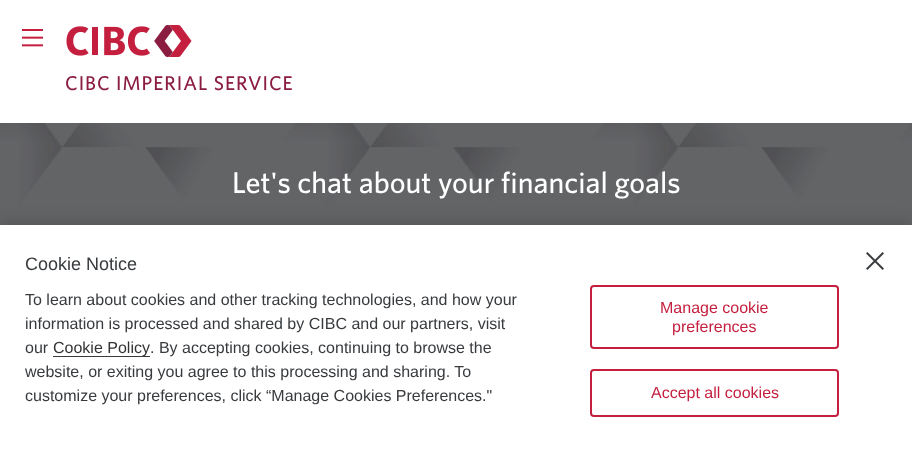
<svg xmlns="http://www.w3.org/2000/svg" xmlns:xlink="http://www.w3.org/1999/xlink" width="912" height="462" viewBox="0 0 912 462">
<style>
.cls-1{font:300 20px 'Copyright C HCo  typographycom';letter-spacing:1px;fill:#8b1d41}
.cls-2{font:300 30px 'Copyright C HCo  typographycom';fill:#ffffff}
.cls-3{font:18px Liberation Sans;fill:#383b3e}
.cls-4{font:16px Liberation Sans;fill:#383b3e}
.cls-5{font:16px Liberation Sans;fill:#333333}
.cls-6{font:16px Liberation Sans;fill:#c41f3e}
</style>
<rect width="100%" height="100%" fill="#ffffff"/>
<image xlink:href="image0.png" x="22" y="29" width="21" height="18"/>
<image xlink:href="image1.png" x="66" y="25" width="126" height="32"/>
<image xlink:href="image2.png" x="0" y="123" width="912" height="102"/>
<rect fill="#000000" fill-opacity="0.2" filter="blur(9px)" x="0" y="225" width="912" height="237"/>
<rect fill="#ffffff" x="0" y="225" width="912" height="237"/>
<rect fill="#383b3e" x="53" y="356" width="97" height="1"/>
<rect fill="none" stroke="#c41f3e" stroke-width="2" x="591" y="286" width="247" height="62" rx="3"/>
<rect fill="none" stroke="#c41f3e" stroke-width="2" x="591" y="370" width="247" height="46" rx="3"/>
<image xlink:href="image3.png" x="866" y="252" width="18" height="18"/>
<text class="cls-1" x="65" y="90">CIBC IMPERIAL SERVICE</text>
<text class="cls-2" x="232" y="193">Let's chat about your financial goals</text>
<text class="cls-3" x="25" y="270">Cookie Notice</text>
<text class="cls-4"><tspan x="25" y="305">To learn about cookies and other tracking technologies, and how your</tspan><tspan x="25" y="329">information is processed and shared by CIBC and our partners, visit</tspan><tspan x="25" y="353">our</tspan></text>
<text class="cls-5" x="53" y="353">Cookie Policy</text>
<text class="cls-4" x="150" y="353">. By accepting cookies, continuing to browse the</text>
<text class="cls-4"><tspan x="25" y="377">website, or exiting you agree to this processing and sharing. To</tspan><tspan x="25" y="401">customize your preferences, click “Manage Cookies Preferences."</tspan></text>
<text class="cls-6" x="660" y="313">Manage cookie</text>
<text class="cls-6" x="672" y="332">preferences</text>
<text class="cls-6" x="651" y="398">Accept all cookies</text>
</svg>
